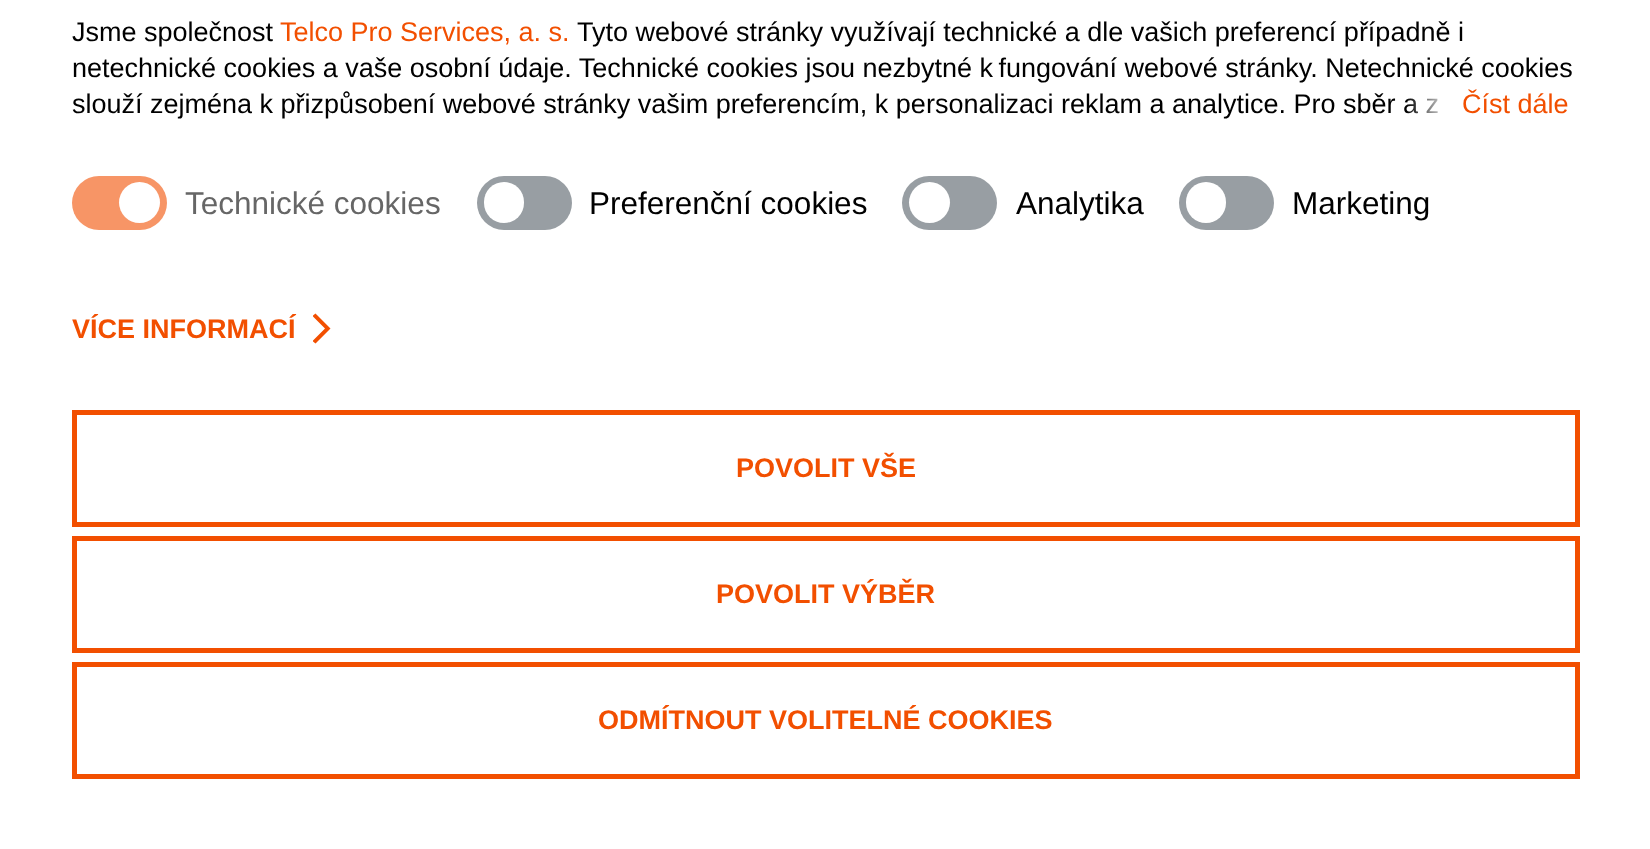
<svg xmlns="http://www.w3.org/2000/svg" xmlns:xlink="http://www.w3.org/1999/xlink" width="1650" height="849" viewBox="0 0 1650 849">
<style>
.cls-1{font:27px Liberation Sans;fill:#000000}
.cls-2{font:27px Liberation Sans;fill:#f24f00}
.cls-3{font:31.5px Liberation Sans;fill:#666666}
.cls-4{font:31.5px Liberation Sans;fill:#000000}
.cls-5{font:bold 27px Liberation Sans;fill:#f24f00}
</style>
<defs>
<clipPath id="clip1"><rect x="313" y="311" width="18" height="36"/></clipPath>
<linearGradient id="g1" gradientUnits="userSpaceOnUse" x1="1406" y1="104" x2="1451" y2="104"><stop offset="0" stop-color="#ffffff" stop-opacity="0"/><stop offset="1" stop-color="#ffffff"/></linearGradient>
</defs>
<rect width="100%" height="100%" fill="#ffffff"/>
<rect fill="#f79566" x="72" y="176" width="95" height="54" rx="27"/>
<circle fill="#ffffff" cx="139.5" cy="202.5" r="20.5"/>
<rect fill="#989ea3" x="477" y="176" width="95" height="54" rx="27"/>
<rect fill="#ffffff" x="484" y="182" width="40" height="41" rx="20"/>
<rect fill="#989ea3" x="902" y="176" width="95" height="54" rx="27"/>
<circle fill="#ffffff" cx="929.5" cy="202.5" r="20.5"/>
<rect fill="#989ea3" x="1179" y="176" width="95" height="54" rx="27"/>
<rect fill="#ffffff" x="1186" y="182" width="40" height="41" rx="20"/>
<g clip-path="url(#clip1)">
<path fill="#f24f00" d="M315.5 343.5L312.5 341L325 328.5L312.5 316L315.5 313.5L330.5 328.5Z"/>
</g>
<rect fill="none" stroke="#f24f00" stroke-width="5" x="74.5" y="412.5" width="1503" height="112"/>
<rect fill="none" stroke="#f24f00" stroke-width="5" x="74.5" y="538.5" width="1503" height="112"/>
<rect fill="none" stroke="#f24f00" stroke-width="5" x="74.5" y="664.5" width="1503" height="112"/>
<text class="cls-1" x="72" y="41">Jsme společnost</text>
<text class="cls-2" x="280" y="41">Telco Pro Services, a. s.</text>
<text class="cls-1" x="577" y="41">Tyto webové stránky využívají technické a dle vašich preferencí případně i</text>
<text class="cls-1"><tspan x="72" y="77">netechnické cookies a vaše osobní údaje. Technické cookies jsou nezbytné k fungování webové stránky. Netechnické cookies</tspan><tspan x="72" y="113">slouží zejména k přizpůsobení webové stránky vašim preferencím, k personalizaci reklam a analytice. Pro sběr a z</tspan></text>
<rect fill="url(#g1)" x="1407" y="98" width="31" height="16"/>
<text class="cls-2" x="1462" y="113">Číst dále</text>
<text class="cls-3" x="185" y="214">Technické cookies</text>
<text class="cls-4" x="589" y="214">Preferenční cookies</text>
<text class="cls-4" x="1016" y="214">Analytika</text>
<text class="cls-4" x="1292" y="214">Marketing</text>
<text class="cls-5" x="72" y="338">VÍCE INFORMACÍ</text>
<text class="cls-5" x="736" y="477">POVOLIT VŠE</text>
<text class="cls-5" x="716" y="603">POVOLIT VÝBĚR</text>
<text class="cls-5" x="598" y="729">ODMÍTNOUT VOLITELNÉ COOKIES</text>
</svg>
